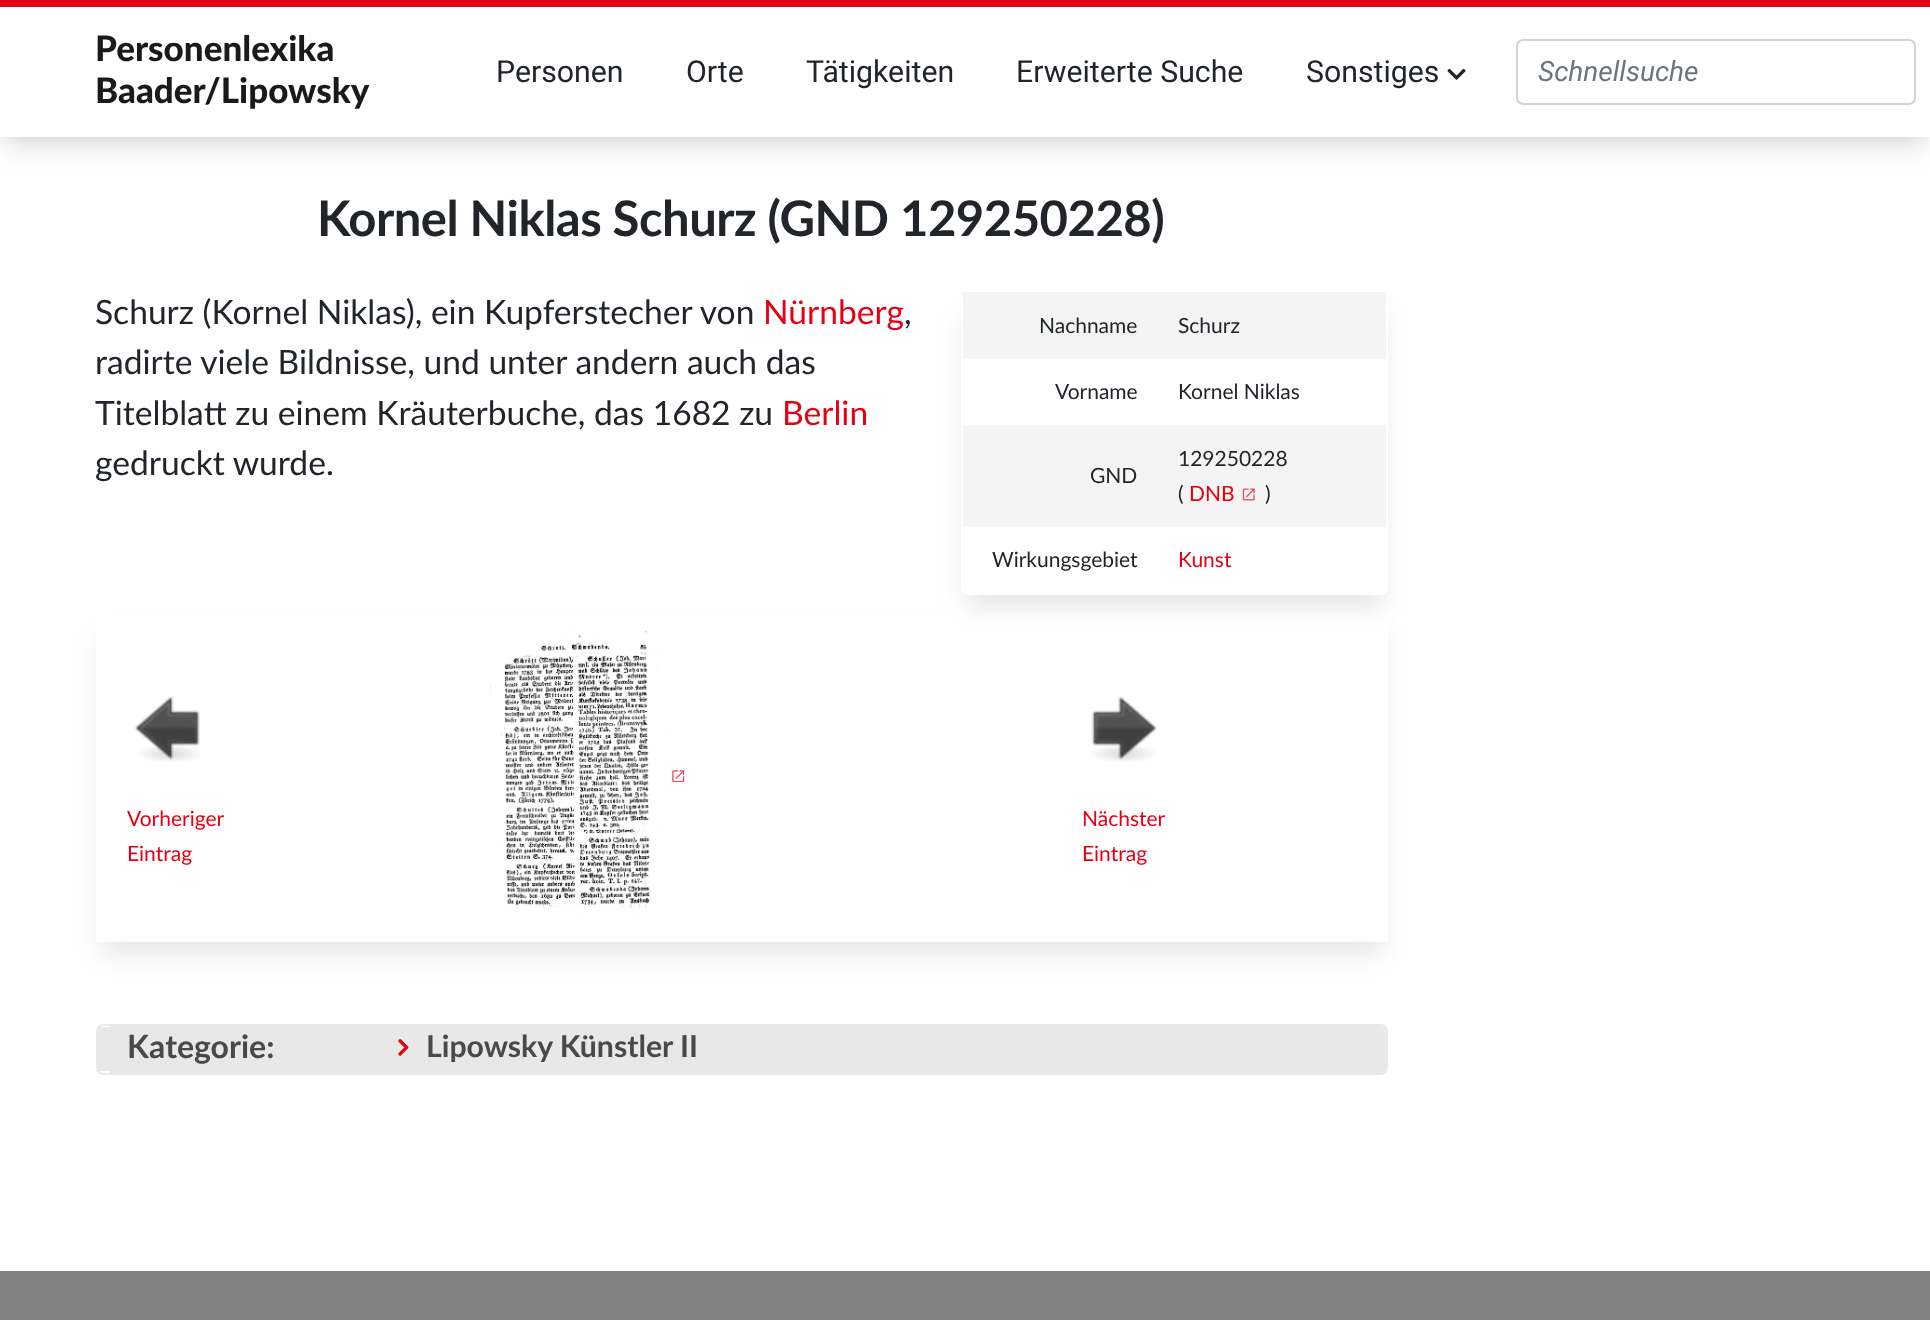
<svg xmlns="http://www.w3.org/2000/svg" xmlns:xlink="http://www.w3.org/1999/xlink" width="1930" height="1320" viewBox="0 0 1930 1320">
<style>
.cls-1{font:900 35px Lato;fill:#1a1a1a}
.cls-2{font:30.25px Roboto;fill:#212529}
.cls-3{font:italic 28px Roboto;fill:#6c757d}
.cls-4{font:bold 49px Lato;letter-spacing:-0.5px;fill:#212529}
.cls-5{font:33.6px Lato;fill:#212529}
.cls-6{font:33.6px Lato;fill:#e50015}
.cls-7{font:21px Lato;fill:#212529}
.cls-8{font:21px Lato;fill:#e50015}
.cls-9{font:bold 32px Lato;fill:#494949}
.cls-10{font:bold 30.25px Lato;fill:#494949}
</style>
<defs>
<clipPath id="clip1"><path d="M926 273H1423V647H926ZM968 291H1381C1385 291 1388 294 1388 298V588C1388 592 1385 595 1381 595H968C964 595 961 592 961 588V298C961 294 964 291 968 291Z" clip-rule="evenodd"/></clipPath>
<clipPath id="clip2"><path d="M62 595H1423V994H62ZM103 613H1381C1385 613 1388 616 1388 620V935C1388 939 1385 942 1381 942H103C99 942 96 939 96 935V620C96 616 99 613 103 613Z" clip-rule="evenodd"/></clipPath>
</defs>
<rect width="100%" height="100%" fill="#ffffff"/>
<rect fill="#000000" fill-opacity="0.05" filter="blur(5px)" x="4" y="11" width="1923" height="129"/>
<rect fill="#000000" fill-opacity="0.1" filter="blur(13px)" x="5" y="23" width="1920" height="126"/>
<rect fill="#ffffff" x="0" y="7" width="1930" height="130"/>
<rect fill="#e50015" x="0" y="0" width="1930" height="7"/>
<image xlink:href="image0.png" x="1447" y="68" width="19" height="12"/>
<rect fill="none" stroke="#ced4da" stroke-width="2" x="1517" y="40" width="398" height="64" rx="6"/>
<g clip-path="url(#clip1)">
<rect fill="#000000" fill-opacity="0.1" filter="blur(13px)" x="966" y="313" width="417" height="294" rx="2"/>
</g>
<rect fill="#f4f4f4" x="963" y="292" width="423" height="67"/>
<rect fill="#f4f4f4" x="963" y="425" width="423" height="102"/>
<image xlink:href="image1.png" x="1242" y="488" width="13" height="13"/>
<g clip-path="url(#clip2)">
<rect fill="#000000" fill-opacity="0.1" filter="blur(13px)" x="102" y="635" width="1281" height="319" rx="2"/>
</g>
<rect fill="#ffffff" x="1384" y="935" width="4" height="7"/>
<rect fill="#ffffff" x="459" y="941" width="929" height="1"/>
<rect fill="#ffffff" x="96" y="938" width="366" height="4"/>
<rect fill="#ffffff" x="96" y="935" width="1" height="7"/>
<image xlink:href="image2.png" x="134" y="696" width="66" height="66"/>
<image xlink:href="image3.png" x="490" y="630" width="175" height="290"/>
<image xlink:href="image4.png" x="672" y="770" width="13" height="12"/>
<image xlink:href="image5.png" x="1091" y="696" width="66" height="66"/>
<path fill="#e8e8e8" d="M110 1026H1381C1384 1026 1386 1028 1386 1031V1068C1386 1070 1384 1073 1381 1073H110Z"/>
<rect fill="none" stroke="#e8e8e8" stroke-width="2" x="97" y="1025" width="1290" height="49" rx="6"/>
<rect fill="#e8e8e8" x="98" y="1027" width="12" height="44"/>
<image xlink:href="image6.png" x="398" y="1039" width="11" height="17"/>
<rect fill="#818181" x="0" y="1271" width="1930" height="49"/>
<text class="cls-1"><tspan x="95" y="61">Personenlexika</tspan><tspan x="95" y="103">Baader/Lipowsky</tspan></text>
<text class="cls-2" x="496" y="82">Personen</text>
<text class="cls-2" x="686" y="82">Orte</text>
<text class="cls-2" x="806" y="82">Tätigkeiten</text>
<text class="cls-2" x="1016" y="82">Erweiterte Suche</text>
<text class="cls-2" x="1306" y="82">Sonstiges</text>
<text class="cls-3" x="1538" y="81">Schnellsuche</text>
<text class="cls-4" x="317" y="236">Kornel Niklas Schurz (GND 129250228)</text>
<text class="cls-5" x="95" y="324">Schurz (Kornel Niklas), ein Kupferstecher von</text>
<text class="cls-6" x="763" y="324">Nürnberg</text>
<text class="cls-5" x="904" y="324">,</text>
<text class="cls-5"><tspan x="95" y="374">radirte viele Bildnisse, und unter andern auch das</tspan><tspan x="95" y="425">Titelblatt zu einem Kräuterbuche, das 1682 zu</tspan></text>
<text class="cls-6" x="782" y="425">Berlin</text>
<text class="cls-5" x="95" y="475">gedruckt wurde.</text>
<text class="cls-7" x="1039" y="333">Nachname</text>
<text class="cls-7" x="1178" y="333">Schurz</text>
<text class="cls-7" x="1055" y="399">Vorname</text>
<text class="cls-7" x="1178" y="399">Kornel Niklas</text>
<text class="cls-7" x="1090" y="483">GND</text>
<text class="cls-7"><tspan x="1178" y="466">129250228</tspan><tspan x="1178" y="501">(</tspan></text>
<text class="cls-8" x="1189" y="501">DNB</text>
<text class="cls-7" x="1265" y="501">)</text>
<text class="cls-7" x="992" y="567">Wirkungsgebiet</text>
<text class="cls-8" x="1178" y="567">Kunst</text>
<text class="cls-8"><tspan x="127" y="826">Vorheriger</tspan><tspan x="127" y="861">Eintrag</tspan></text>
<text class="cls-8"><tspan x="1082" y="826">Nächster</tspan><tspan x="1082" y="861">Eintrag</tspan></text>
<text class="cls-9" x="127" y="1058">Kategorie:</text>
<text class="cls-10" x="426" y="1057">Lipowsky Künstler II</text>
</svg>
